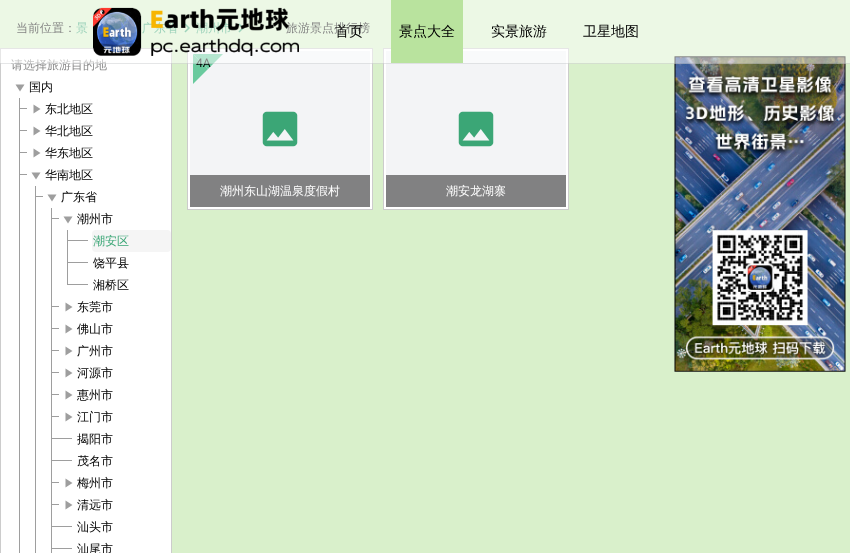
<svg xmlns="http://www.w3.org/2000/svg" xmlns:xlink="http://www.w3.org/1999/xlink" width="850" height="553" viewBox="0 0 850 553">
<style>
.cls-1{font:500 12px WenQuanYi Zen Hei;fill:#000000}
.cls-2{font:500 12px WenQuanYi Zen Hei;fill:#3ba676}
.cls-3{font:500 12px WenQuanYi Zen Hei;fill:#888888}
.cls-4{font:12px Roboto;fill:#000000}
.cls-5{font:500 12px WenQuanYi Zen Hei;fill:#ffffff}
.cls-6{font:500 14px WenQuanYi Zen Hei;fill:#000000}
</style>
<rect width="100%" height="100%" fill="#d9f0cb"/>
<image xlink:href="image0.png" x="184" y="23" width="6" height="10"/>
<image xlink:href="image0.png" x="238" y="23" width="6" height="10"/>
<rect fill="#ffffff" stroke="#cccccc" x="0.5" y="48.5" width="171" height="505"/>
<path fill="#9e9e9e" d="M24.5 84.5L20 91.5L15.5 84.5Z"/>
<rect fill="#9e9e9e" x="19" y="108" width="8" height="1"/>
<rect fill="#9e9e9e" x="19" y="98" width="1" height="22"/>
<path fill="#9e9e9e" d="M33.5 104.5L40.5 109L33.5 113.5Z"/>
<rect fill="#9e9e9e" x="19" y="130" width="8" height="1"/>
<rect fill="#9e9e9e" x="19" y="120" width="1" height="22"/>
<path fill="#9e9e9e" d="M33.5 126.5L40.5 131L33.5 135.5Z"/>
<rect fill="#9e9e9e" x="19" y="152" width="8" height="1"/>
<rect fill="#9e9e9e" x="19" y="142" width="1" height="22"/>
<path fill="#9e9e9e" d="M33.5 148.5L40.5 153L33.5 157.5Z"/>
<rect fill="#9e9e9e" x="19" y="174" width="8" height="1"/>
<rect fill="#9e9e9e" x="19" y="164" width="1" height="389"/>
<path fill="#9e9e9e" d="M40.5 172.5L36 179.5L31.5 172.5Z"/>
<rect fill="#9e9e9e" x="35" y="196" width="8" height="1"/>
<rect fill="#9e9e9e" x="35" y="186" width="1" height="367"/>
<path fill="#9e9e9e" d="M56.5 194.5L52 201.5L47.5 194.5Z"/>
<rect fill="#9e9e9e" x="51" y="218" width="8" height="1"/>
<rect fill="#9e9e9e" x="51" y="208" width="1" height="88"/>
<path fill="#9e9e9e" d="M72.5 216.5L68 223.5L63.5 216.5Z"/>
<rect fill="#9e9e9e" x="67" y="240" width="21" height="1"/>
<rect fill="#9e9e9e" x="67" y="230" width="1" height="22"/>
<rect fill="#f5f5f5" x="92" y="230" width="79" height="22" rx="4"/>
<rect fill="#9e9e9e" x="67" y="262" width="21" height="1"/>
<rect fill="#9e9e9e" x="67" y="252" width="1" height="22"/>
<rect fill="#9e9e9e" x="67" y="284" width="21" height="1"/>
<rect fill="#9e9e9e" x="67" y="274" width="1" height="11"/>
<rect fill="#9e9e9e" x="51" y="306" width="8" height="1"/>
<rect fill="#9e9e9e" x="51" y="296" width="1" height="22"/>
<path fill="#9e9e9e" d="M65.5 302.5L72.5 307L65.5 311.5Z"/>
<rect fill="#9e9e9e" x="51" y="328" width="8" height="1"/>
<rect fill="#9e9e9e" x="51" y="318" width="1" height="22"/>
<path fill="#9e9e9e" d="M65.5 324.5L72.5 329L65.5 333.5Z"/>
<rect fill="#9e9e9e" x="51" y="350" width="8" height="1"/>
<rect fill="#9e9e9e" x="51" y="340" width="1" height="22"/>
<path fill="#9e9e9e" d="M65.5 346.5L72.5 351L65.5 355.5Z"/>
<rect fill="#9e9e9e" x="51" y="372" width="8" height="1"/>
<rect fill="#9e9e9e" x="51" y="362" width="1" height="22"/>
<path fill="#9e9e9e" d="M65.5 368.5L72.5 373L65.5 377.5Z"/>
<rect fill="#9e9e9e" x="51" y="394" width="8" height="1"/>
<rect fill="#9e9e9e" x="51" y="384" width="1" height="22"/>
<path fill="#9e9e9e" d="M65.5 390.5L72.5 395L65.5 399.5Z"/>
<rect fill="#9e9e9e" x="51" y="416" width="8" height="1"/>
<rect fill="#9e9e9e" x="51" y="406" width="1" height="22"/>
<path fill="#9e9e9e" d="M65.5 412.5L72.5 417L65.5 421.5Z"/>
<rect fill="#9e9e9e" x="51" y="438" width="21" height="1"/>
<rect fill="#9e9e9e" x="51" y="428" width="1" height="22"/>
<rect fill="#9e9e9e" x="51" y="460" width="21" height="1"/>
<rect fill="#9e9e9e" x="51" y="450" width="1" height="22"/>
<rect fill="#9e9e9e" x="51" y="482" width="8" height="1"/>
<rect fill="#9e9e9e" x="51" y="472" width="1" height="22"/>
<path fill="#9e9e9e" d="M65.5 478.5L72.5 483L65.5 487.5Z"/>
<rect fill="#9e9e9e" x="51" y="504" width="8" height="1"/>
<rect fill="#9e9e9e" x="51" y="494" width="1" height="22"/>
<path fill="#9e9e9e" d="M65.5 500.5L72.5 505L65.5 509.5Z"/>
<rect fill="#9e9e9e" x="51" y="526" width="21" height="1"/>
<rect fill="#9e9e9e" x="51" y="516" width="1" height="22"/>
<rect fill="#9e9e9e" x="51" y="548" width="21" height="1"/>
<rect fill="#9e9e9e" x="51" y="538" width="1" height="15"/>
<rect fill="#ffffff" stroke="#cccccc" x="187.5" y="48.5" width="185" height="161"/>
<rect fill="#f3f4f6" x="190" y="51" width="180" height="124"/>
<path fill="#69ca9e" d="M193 54H223L208 69Z"/>
<path fill="#69ca9e" d="M193 84V54L208 69Z"/>
<image xlink:href="image1.png" x="262" y="111" width="36" height="36"/>
<rect fill="#818182" x="190" y="175" width="180" height="32"/>
<rect fill="#ffffff" stroke="#cccccc" x="383.5" y="48.5" width="185" height="161"/>
<rect fill="#f3f4f6" x="386" y="51" width="180" height="124"/>
<image xlink:href="image1.png" x="458" y="111" width="36" height="36"/>
<rect fill="#818182" x="386" y="175" width="180" height="32"/>
<image xlink:href="image2.png" x="674" y="56" width="172" height="316"/>
<text class="cls-1" x="16" y="32">当前位置：</text>
<text class="cls-2" x="76" y="32">景</text>
<text class="cls-2" x="142" y="32">广东省</text>
<text class="cls-2" x="196" y="32">潮州市</text>
<text class="cls-1" x="286" y="32">旅游景点排行榜</text>
<text class="cls-3" x="11" y="69">请选择旅游目的地</text>
<text class="cls-1" x="29" y="91">国内</text>
<text class="cls-1"><tspan x="45" y="113">东北地区</tspan><tspan x="45" y="135">华北地区</tspan><tspan x="45" y="157">华东地区</tspan><tspan x="45" y="179">华南地区</tspan></text>
<text class="cls-1" x="61" y="201">广东省</text>
<text class="cls-1" x="77" y="223">潮州市</text>
<text class="cls-2" x="93" y="245">潮安区</text>
<text class="cls-1"><tspan x="93" y="267">饶平县</tspan><tspan x="93" y="289">湘桥区</tspan></text>
<text class="cls-1"><tspan x="77" y="311">东莞市</tspan><tspan x="77" y="333">佛山市</tspan><tspan x="77" y="355">广州市</tspan><tspan x="77" y="377">河源市</tspan><tspan x="77" y="399">惠州市</tspan><tspan x="77" y="421">江门市</tspan><tspan x="77" y="443">揭阳市</tspan><tspan x="77" y="465">茂名市</tspan><tspan x="77" y="487">梅州市</tspan><tspan x="77" y="509">清远市</tspan><tspan x="77" y="531">汕头市</tspan><tspan x="77" y="553">汕尾市</tspan></text>
<text class="cls-4" x="196" y="67">4A</text>
<text class="cls-5" x="220" y="195">潮州东山湖温泉度假村</text>
<text class="cls-5" x="446" y="195">潮安龙湖寨</text>
<rect fill="#ffffff" fill-opacity="0.5" x="0" y="0" width="850" height="64"/>
<rect fill="#030712" fill-opacity="0.1" x="0" y="63" width="850" height="1"/>
<image xlink:href="image3.png" x="93" y="7" width="206" height="49"/>
<text class="cls-6" x="335" y="36">首页</text>
<rect fill="#b9e39e" x="391" y="0" width="72" height="63"/>
<text class="cls-6" x="399" y="36">景点大全</text>
<text class="cls-6" x="491" y="36">实景旅游</text>
<text class="cls-6" x="583" y="36">卫星地图</text>
</svg>
